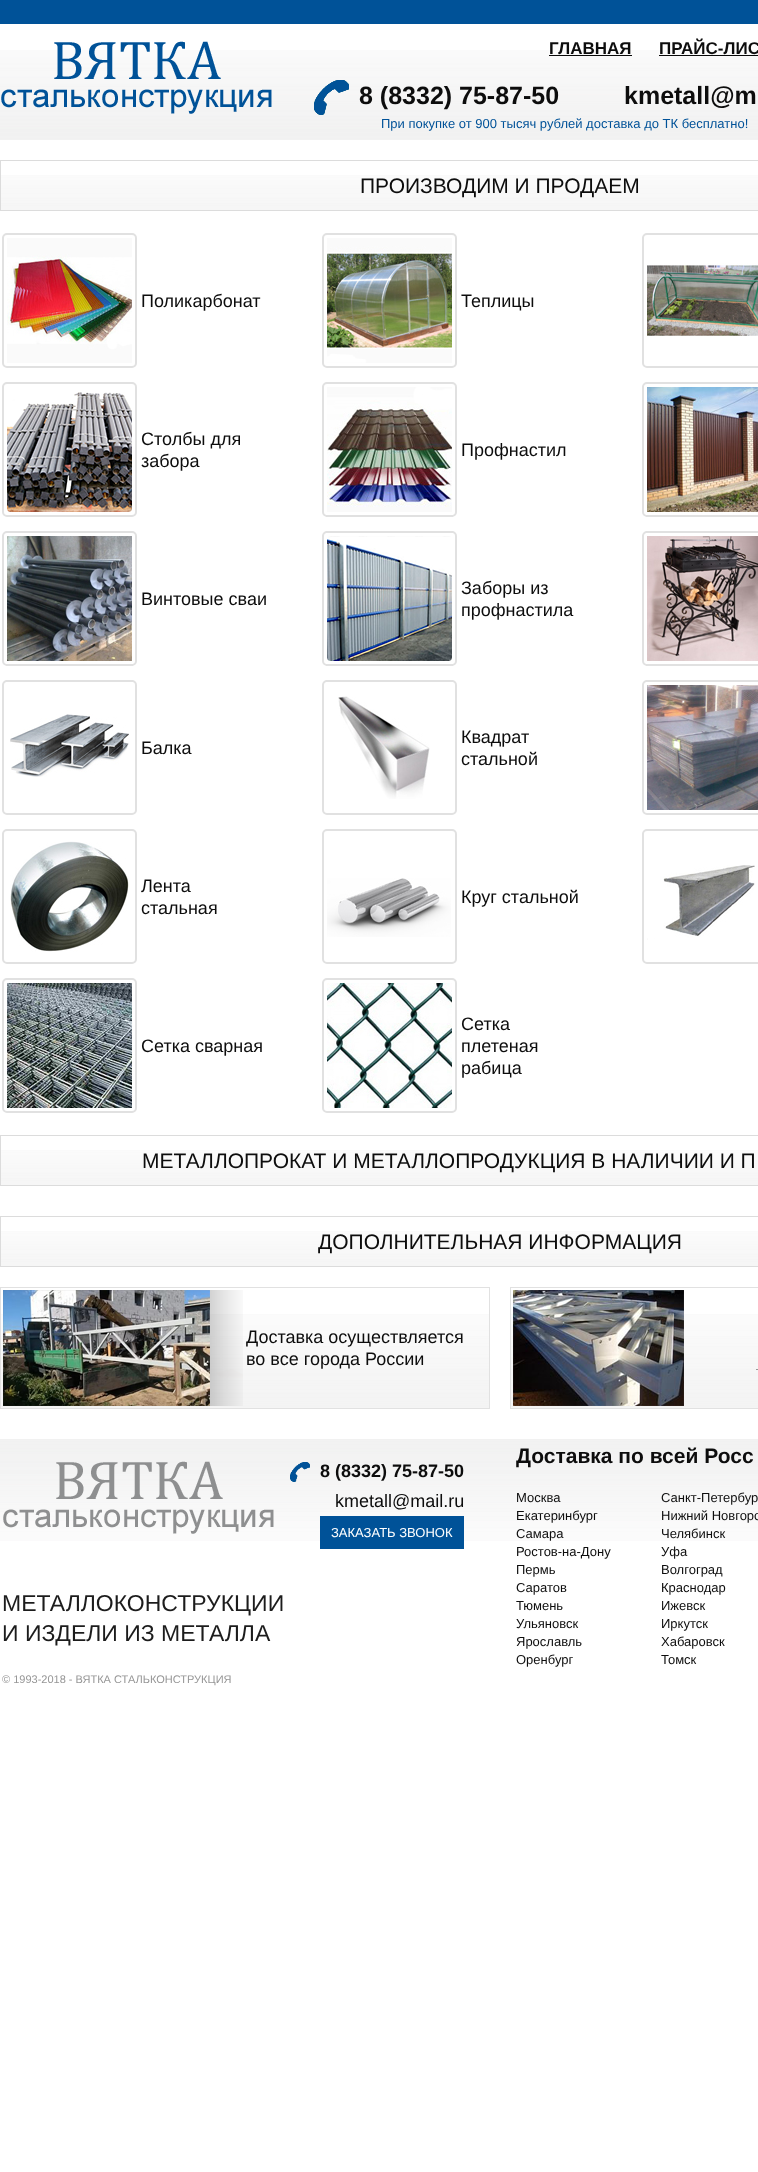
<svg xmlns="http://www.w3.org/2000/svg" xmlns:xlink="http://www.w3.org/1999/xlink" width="758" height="2172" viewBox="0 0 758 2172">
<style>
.cls-1{font:bold 17px Liberation Sans;fill:#0d0d0d}
.cls-2{font:bold 25px Liberation Sans;fill:#0d0d0d}
.cls-3{font:13px Liberation Sans;fill:#005298}
.cls-4{font:21px Liberation Sans;fill:#0d0d0d}
.cls-5{font:18px Liberation Sans;fill:#0d0d0d}
.cls-6{font:23px Liberation Sans;fill:#1c1c1c}
.cls-7{font:bold 18px Liberation Sans;fill:#0d0d0d}
.cls-8{font:13px Liberation Sans;fill:#ffffff}
.cls-9{font:bold 21px Liberation Sans;fill:#0d0d0d}
.cls-10{font:13px Liberation Sans;fill:#0d0d0d}
.cls-11{font:11px Liberation Sans;fill:#969696}
</style>
<rect width="100%" height="100%" fill="#ffffff"/>
<rect fill="#005298" x="0" y="0" width="758" height="24"/>
<image xlink:href="image0.png" x="0" y="50" width="758" height="90"/>
<image xlink:href="image1.png" x="1" y="41" width="271" height="73"/>
<rect fill="#080808" x="549" y="55" width="83" height="1"/>
<rect fill="#080808" x="659" y="55" width="99" height="1"/>
<image xlink:href="image2.png" x="314" y="80" width="35" height="35"/>
<image xlink:href="image3.png" x="1" y="175" width="757" height="35"/>
<rect fill="none" stroke="#dcdcdc" x="0.5" y="160.5" width="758" height="50"/>
<rect fill="none" stroke="#e1e1e1" stroke-width="2" x="3" y="234" width="133" height="133" rx="4"/>
<image xlink:href="image4.png" x="7" y="238" width="125" height="125"/>
<rect fill="none" stroke="#e1e1e1" stroke-width="2" x="323" y="234" width="133" height="133" rx="4"/>
<image xlink:href="image5.png" x="327" y="238" width="125" height="125"/>
<rect fill="none" stroke="#e1e1e1" stroke-width="2" x="643" y="234" width="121" height="133" rx="4"/>
<image xlink:href="image6.png" x="647" y="263" width="111" height="73"/>
<rect fill="none" stroke="#e1e1e1" stroke-width="2" x="3" y="383" width="133" height="133" rx="4"/>
<image xlink:href="image7.png" x="7" y="392" width="125" height="120"/>
<rect fill="none" stroke="#e1e1e1" stroke-width="2" x="323" y="383" width="133" height="133" rx="4"/>
<image xlink:href="image8.png" x="327" y="387" width="125" height="125"/>
<rect fill="none" stroke="#e1e1e1" stroke-width="2" x="643" y="383" width="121" height="133" rx="4"/>
<image xlink:href="image9.png" x="647" y="387" width="111" height="125"/>
<rect fill="none" stroke="#e1e1e1" stroke-width="2" x="3" y="532" width="133" height="133" rx="4"/>
<image xlink:href="image10.png" x="7" y="536" width="125" height="125"/>
<rect fill="none" stroke="#e1e1e1" stroke-width="2" x="323" y="532" width="133" height="133" rx="4"/>
<image xlink:href="image11.png" x="327" y="536" width="125" height="125"/>
<rect fill="none" stroke="#e1e1e1" stroke-width="2" x="643" y="532" width="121" height="133" rx="4"/>
<image xlink:href="image12.png" x="647" y="536" width="111" height="125"/>
<rect fill="none" stroke="#e1e1e1" stroke-width="2" x="3" y="681" width="133" height="133" rx="4"/>
<image xlink:href="image13.png" x="10" y="714" width="119" height="63"/>
<rect fill="none" stroke="#e1e1e1" stroke-width="2" x="323" y="681" width="133" height="133" rx="4"/>
<image xlink:href="image14.png" x="338" y="696" width="92" height="103"/>
<rect fill="none" stroke="#e1e1e1" stroke-width="2" x="643" y="681" width="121" height="133" rx="4"/>
<image xlink:href="image15.png" x="647" y="685" width="111" height="125"/>
<rect fill="none" stroke="#e1e1e1" stroke-width="2" x="3" y="830" width="133" height="133" rx="4"/>
<image xlink:href="image16.png" x="10" y="841" width="119" height="111"/>
<rect fill="none" stroke="#e1e1e1" stroke-width="2" x="323" y="830" width="133" height="133" rx="4"/>
<image xlink:href="image17.png" x="327" y="878" width="124" height="59"/>
<rect fill="none" stroke="#e1e1e1" stroke-width="2" x="643" y="830" width="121" height="133" rx="4"/>
<image xlink:href="image18.png" x="647" y="865" width="108" height="75"/>
<rect fill="none" stroke="#e1e1e1" stroke-width="2" x="3" y="979" width="133" height="133" rx="4"/>
<image xlink:href="image19.png" x="7" y="983" width="125" height="125"/>
<rect fill="none" stroke="#e1e1e1" stroke-width="2" x="323" y="979" width="133" height="133" rx="4"/>
<image xlink:href="image20.png" x="327" y="983" width="125" height="125"/>
<image xlink:href="image3.png" x="1" y="1150" width="757" height="35"/>
<rect fill="none" stroke="#dcdcdc" x="0.5" y="1135.5" width="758" height="50"/>
<image xlink:href="image3.png" x="1" y="1231" width="757" height="35"/>
<rect fill="none" stroke="#dcdcdc" x="0.5" y="1216.5" width="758" height="50"/>
<image xlink:href="image21.png" x="1" y="1314" width="488" height="94"/>
<rect fill="none" stroke="#e1e1e1" x="0.5" y="1287.5" width="489" height="121"/>
<image xlink:href="image22.png" x="3" y="1290" width="240" height="116"/>
<image xlink:href="image23.png" x="511" y="1314" width="247" height="94"/>
<rect fill="none" stroke="#e1e1e1" x="510.5" y="1287.5" width="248" height="121"/>
<image xlink:href="image24.png" x="513" y="1290" width="171" height="116"/>
<rect fill="#969696" x="756" y="1369" width="2" height="1"/>
<image xlink:href="image25.png" x="0" y="1439" width="758" height="102"/>
<image xlink:href="image26.png" x="3" y="1461" width="271" height="73"/>
<image xlink:href="image27.png" x="290" y="1462" width="20" height="20"/>
<rect fill="#005298" x="320" y="1516" width="144" height="33"/>
<text class="cls-1" x="549" y="54">ГЛАВНАЯ</text>
<text class="cls-1" x="659" y="54">ПРАЙС-ЛИС</text>
<text class="cls-2" x="359" y="104">8 (8332) 75-87-50</text>
<text class="cls-2" x="624" y="104">kmetall@m</text>
<text class="cls-3" x="381" y="128">При покупке от 900 тысяч рублей доставка до ТК бесплатно!</text>
<text class="cls-4" x="360" y="193">ПРОИЗВОДИМ И ПРОДАЕМ</text>
<text class="cls-5" x="141" y="307">Поликарбонат</text>
<text class="cls-5" x="461" y="307">Теплицы</text>
<text class="cls-5"><tspan x="141" y="445">Столбы для</tspan><tspan x="141" y="467">забора</tspan></text>
<text class="cls-5" x="461" y="456">Профнастил</text>
<text class="cls-5" x="141" y="605">Винтовые сваи</text>
<text class="cls-5"><tspan x="461" y="594">Заборы из</tspan><tspan x="461" y="616">профнастила</tspan></text>
<text class="cls-5" x="141" y="754">Балка</text>
<text class="cls-5"><tspan x="461" y="743">Квадрат</tspan><tspan x="461" y="765">стальной</tspan></text>
<text class="cls-5"><tspan x="141" y="892">Лента</tspan><tspan x="141" y="914">стальная</tspan></text>
<text class="cls-5" x="461" y="903">Круг стальной</text>
<text class="cls-5" x="141" y="1052">Сетка сварная</text>
<text class="cls-5"><tspan x="461" y="1030">Сетка</tspan><tspan x="461" y="1052">плетеная</tspan><tspan x="461" y="1074">рабица</tspan></text>
<text class="cls-4" x="142" y="1168">МЕТАЛЛОПРОКАТ И МЕТАЛЛОПРОДУКЦИЯ В НАЛИЧИИ И П</text>
<text class="cls-4" x="318" y="1249">ДОПОЛНИТЕЛЬНАЯ ИНФОРМАЦИЯ</text>
<text class="cls-5"><tspan x="246" y="1343">Доставка осуществляется</tspan><tspan x="246" y="1365">во все города России</tspan></text>
<text class="cls-6"><tspan x="2" y="1611">МЕТАЛЛОКОНСТРУКЦИИ</tspan><tspan x="2" y="1641">И ИЗДЕЛИ ИЗ МЕТАЛЛА</tspan></text>
<text class="cls-7" x="320" y="1477">8 (8332) 75-87-50</text>
<text class="cls-5" x="335" y="1507">kmetall@mail.ru</text>
<text class="cls-8" x="331" y="1537">ЗАКАЗАТЬ ЗВОНОК</text>
<text class="cls-9" x="516" y="1463">Доставка по всей Росс</text>
<text class="cls-10" x="516" y="1502">Москва</text>
<text class="cls-10" x="661" y="1502">Санкт-Петербур</text>
<text class="cls-10" x="516" y="1520">Екатеринбург</text>
<text class="cls-10" x="661" y="1520">Нижний Новгоро</text>
<text class="cls-10" x="516" y="1538">Самара</text>
<text class="cls-10" x="661" y="1538">Челябинск</text>
<text class="cls-10" x="516" y="1556">Ростов-на-Дону</text>
<text class="cls-10" x="661" y="1556">Уфа</text>
<text class="cls-10" x="516" y="1574">Пермь</text>
<text class="cls-10" x="661" y="1574">Волгоград</text>
<text class="cls-10" x="516" y="1592">Саратов</text>
<text class="cls-10" x="661" y="1592">Краснодар</text>
<text class="cls-10" x="516" y="1610">Тюмень</text>
<text class="cls-10" x="661" y="1610">Ижевск</text>
<text class="cls-10" x="516" y="1628">Ульяновск</text>
<text class="cls-10" x="661" y="1628">Иркутск</text>
<text class="cls-10" x="516" y="1646">Ярославль</text>
<text class="cls-10" x="661" y="1646">Хабаровск</text>
<text class="cls-10" x="516" y="1664">Оренбург</text>
<text class="cls-10" x="661" y="1664">Томск</text>
<text class="cls-11" x="2" y="1683">© 1993-2018 - ВЯТКА СТАЛЬКОНСТРУКЦИЯ</text>
</svg>
